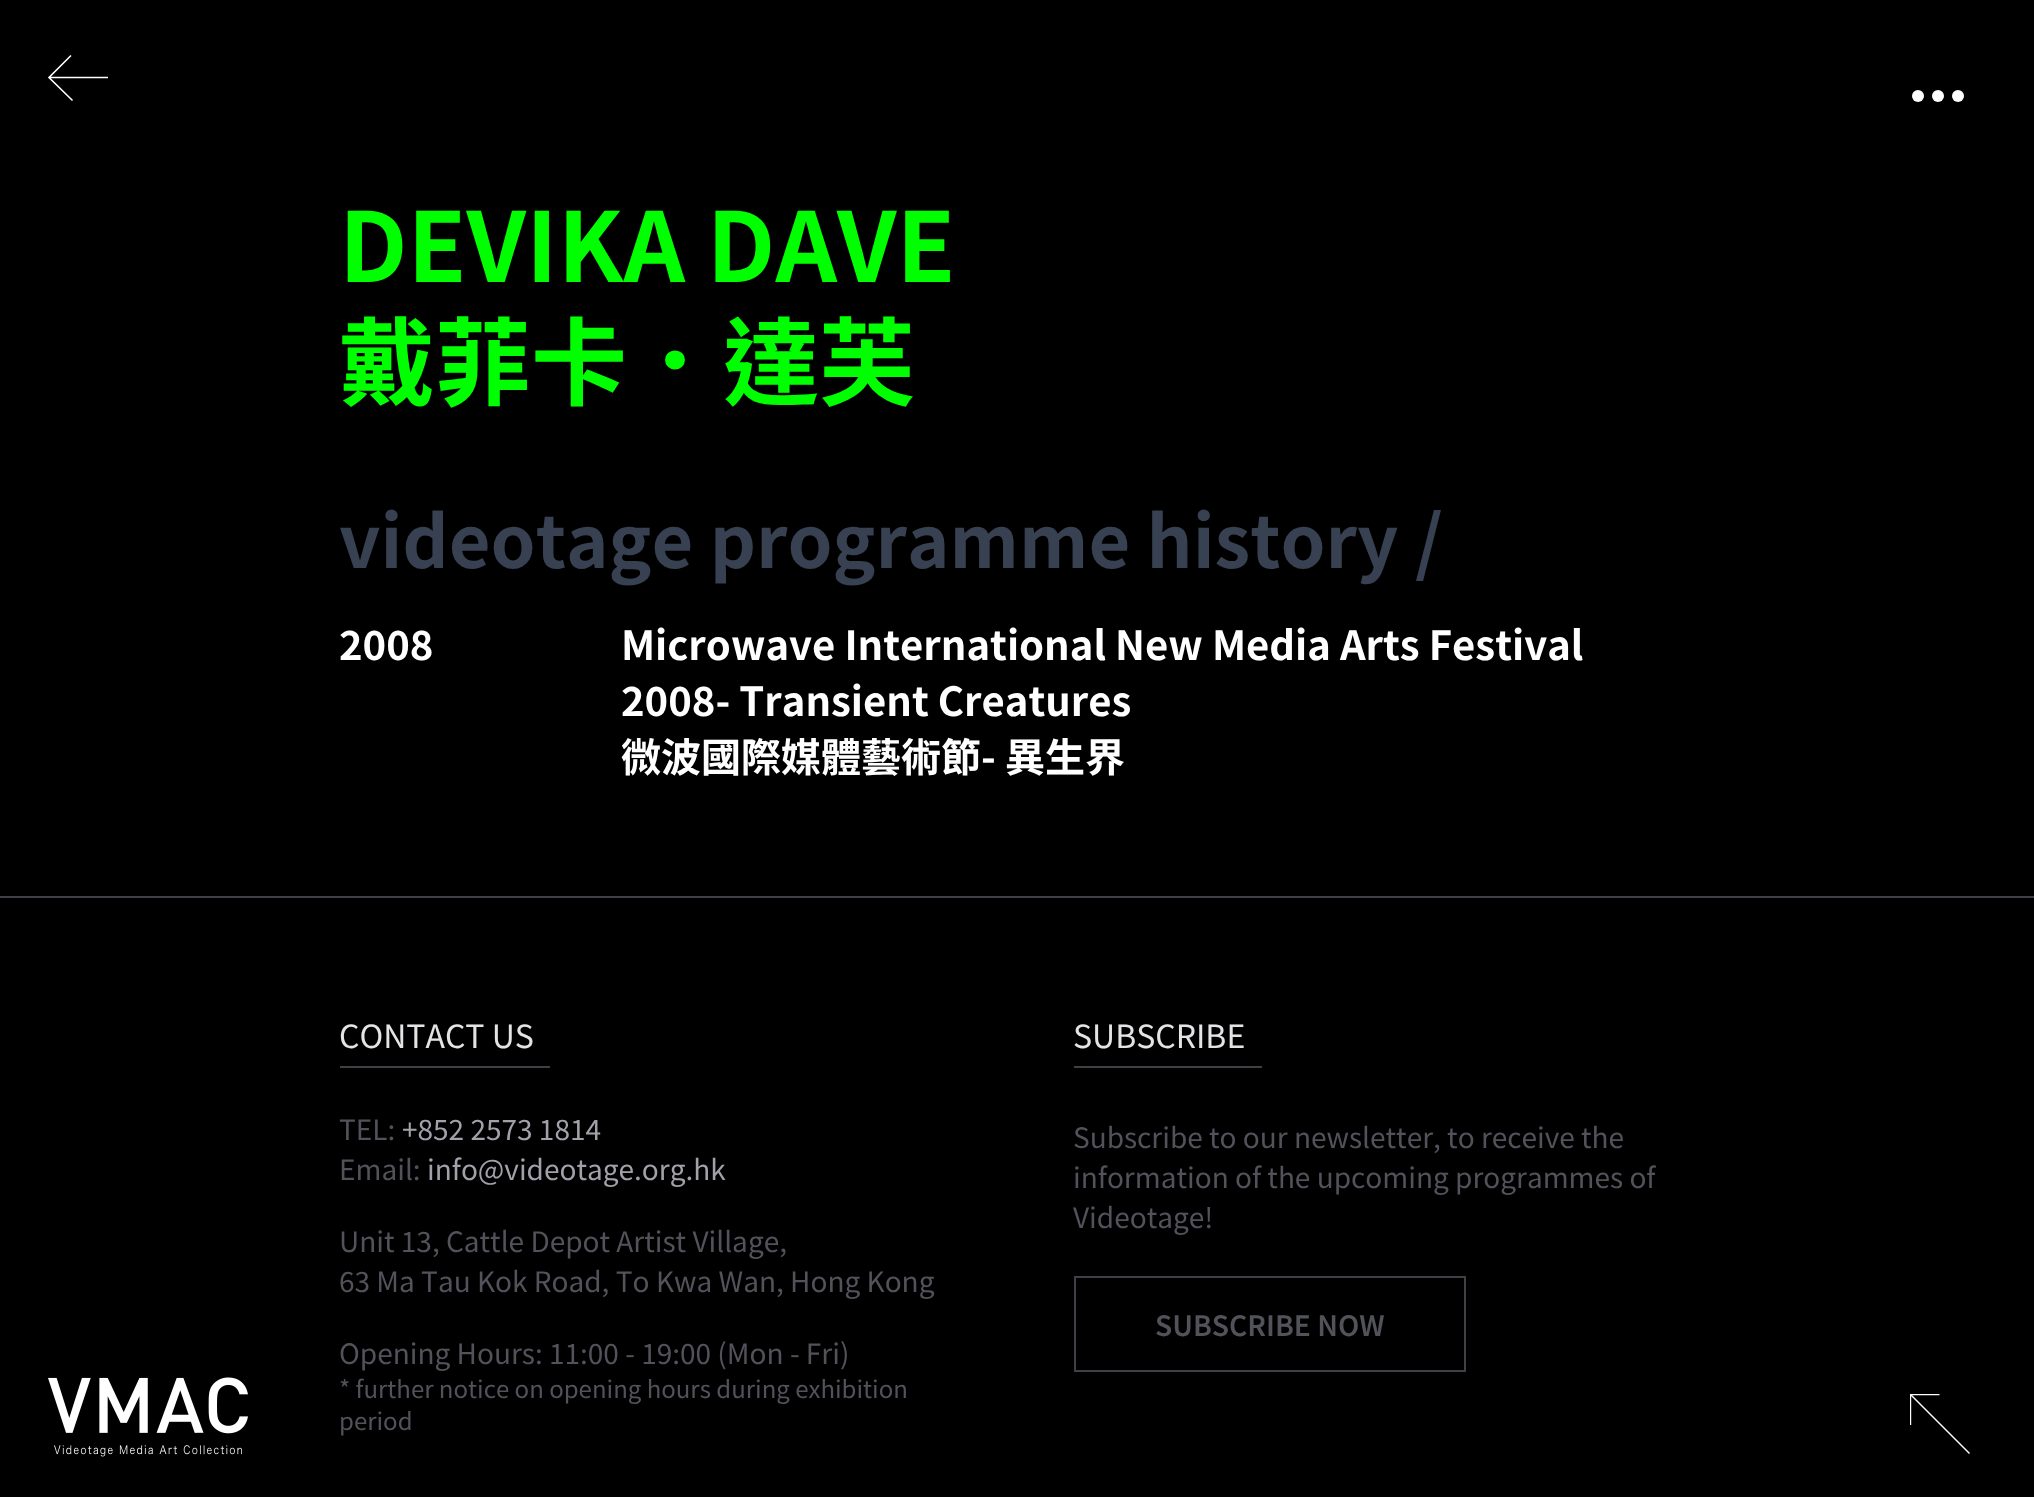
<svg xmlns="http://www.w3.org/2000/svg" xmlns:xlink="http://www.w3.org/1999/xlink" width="2034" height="1497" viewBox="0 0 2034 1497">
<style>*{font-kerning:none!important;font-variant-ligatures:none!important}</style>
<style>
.cls-1{font:bold 96px Noto Sans TC;fill:#00ff00}
.cls-2{font:bold 72px Noto Sans TC;fill:#374151}
.cls-3{font:bold 40px Noto Sans TC;fill:#ffffff}
.cls-4{font:32px Noto Sans TC;fill:#e4e4e7}
.cls-5{font:28px Noto Sans TC;fill:#52525b}
.cls-6{font:28px Noto Sans TC;fill:#a1a1aa}
.cls-7{font:24px Noto Sans TC;fill:#52525b}
.cls-8{font:600 28px Noto Sans TC;fill:#52525b}
</style>
<defs>
<clipPath id="clip1"><rect x="1910" y="1394" width="60" height="60"/></clipPath>
</defs>
<rect width="100%" height="100%" fill="#000000"/>
<path fill="none" stroke="#ffffff" stroke-width="1.6" d="M72.5 100.5L49 77.5L71 55.5M108 77.5H49"/>
<circle fill="#ffffff" cx="1918" cy="96" r="6"/>
<circle fill="#ffffff" cx="1938" cy="96" r="6"/>
<circle fill="#ffffff" cx="1958" cy="96" r="6"/>
<g clip-path="url(#clip1)">
<path fill="none" stroke="#ffffff" stroke-width="1.4" d="M1939.5 1394.5H1910.5V1425"/>
</g>
<path fill="none" stroke="#ffffff" stroke-width="1.4" d="M1910.5 1394.5L1969.5 1453.5"/>
<image xlink:href="image0.png" x="48" y="1377" width="200" height="80"/>
<rect fill="#3f3f46" x="0" y="896" width="2034" height="2"/>
<rect fill="#3f3f46" x="340" y="1066" width="210" height="2"/>
<rect fill="#3f3f46" x="1074" y="1066" width="188" height="2"/>
<rect fill="none" stroke="#3f3f46" stroke-width="2" x="1075" y="1277" width="390" height="94"/>
<text class="cls-1"><tspan x="339" y="282">DEVIKA DAVE</tspan><tspan x="339" y="398">戴菲卡．達芙</tspan></text>
<text class="cls-2" x="339" y="568">videotage programme history</text>
<text class="cls-2" x="1415" y="568">/</text>
<text class="cls-3" x="339" y="660">2008</text>
<text class="cls-3"><tspan x="621" y="660">Microwave International New Media Arts Festival</tspan><tspan x="621" y="716">2008- Transient Creatures</tspan><tspan x="621" y="772">微波國際媒體藝術節- 異生界</tspan></text>
<text class="cls-4" x="339" y="1048">CONTACT US</text>
<text class="cls-5" x="339" y="1140">TEL:</text>
<text class="cls-6" x="402" y="1140">+852 2573 1814</text>
<text class="cls-5" x="339" y="1180">Email:</text>
<text class="cls-6" x="427" y="1180">info@videotage.org.hk</text>
<text class="cls-5"><tspan x="339" y="1252">Unit 13, Cattle Depot Artist Village,</tspan><tspan x="339" y="1292">63 Ma Tau Kok Road, To</tspan></text>
<text class="cls-5" x="656" y="1292">Kwa Wan, Hong Kong</text>
<text class="cls-5" x="339" y="1364">Opening Hours: 11:00 - 19:00 (Mon - Fri)</text>
<text class="cls-7"><tspan x="339" y="1398">* further notice on opening hours during exhibition</tspan><tspan x="339" y="1430">period</tspan></text>
<text class="cls-4" x="1073" y="1048">SUBSCRIBE</text>
<text class="cls-5" x="1073" y="1148">Subscribe to our newsletter, to receive</text>
<text class="cls-5" x="1581" y="1148">the</text>
<text class="cls-5"><tspan x="1073" y="1188">information of the upcoming programmes of</tspan><tspan x="1073" y="1228">Videotage!</tspan></text>
<text class="cls-8" x="1155" y="1336">SUBSCRIBE NOW</text>
</svg>
